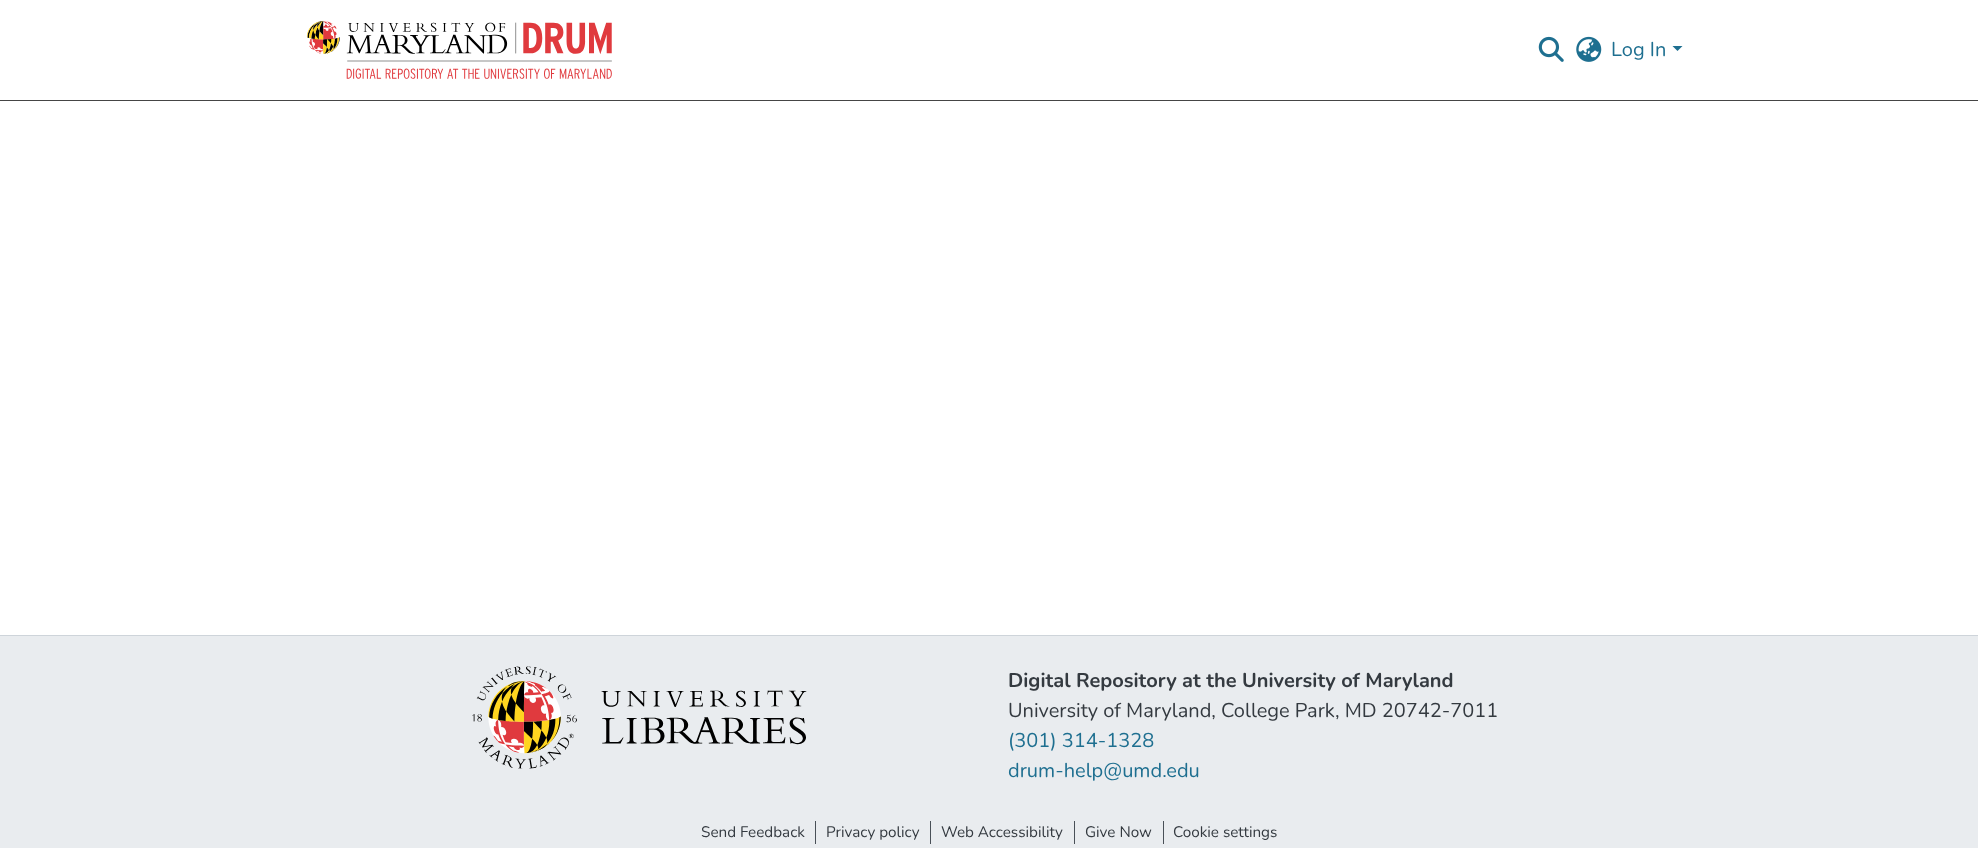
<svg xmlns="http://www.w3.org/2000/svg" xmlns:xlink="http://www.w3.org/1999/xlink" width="1978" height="848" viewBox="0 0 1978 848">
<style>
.cls-1{font:20px Nunito;fill:#1e6f90}
.cls-2{font:bold 20px Nunito;fill:#343a40}
.cls-3{font:20px Nunito;fill:#343a40}
.cls-4{font:15.25px Nunito;fill:#343a40}
</style>
<rect width="100%" height="100%" fill="#ffffff"/>
<rect fill="#454545" x="0" y="100" width="1978" height="1"/>
<image xlink:href="image0.png" x="306" y="20" width="306" height="59"/>
<image xlink:href="image1.png" x="1538" y="36" width="26" height="26"/>
<image xlink:href="image2.png" x="1576" y="36" width="26" height="26"/>
<path fill="#1e6f90" d="M1672.5 46H1682.5L1677.5 51Z"/>
<rect fill="#e9ecef" x="0" y="636" width="1978" height="212"/>
<rect fill="#ced4da" x="0" y="635" width="1978" height="1"/>
<image xlink:href="image3.png" x="472" y="666" width="335" height="103"/>
<rect fill="#495057" x="815" y="821" width="1" height="23"/>
<rect fill="#495057" x="930" y="821" width="1" height="23"/>
<rect fill="#495057" x="1074" y="821" width="1" height="23"/>
<rect fill="#495057" x="1163" y="821" width="1" height="23"/>
<text class="cls-1" x="1611" y="56">Log In</text>
<text class="cls-2" x="1008" y="687">Digital Repository at the University of Maryland</text>
<text class="cls-3" x="1008" y="717">University of Maryland, College Park, MD 20742-7011</text>
<text class="cls-1"><tspan x="1008" y="747">(301) 314-1328</tspan><tspan x="1008" y="777">drum-help@umd.edu</tspan></text>
<text class="cls-4" x="701" y="837">Send Feedback</text>
<text class="cls-4" x="826" y="837">Privacy policy</text>
<text class="cls-4" x="941" y="837">Web Accessibility</text>
<text class="cls-4" x="1085" y="837">Give Now</text>
<text class="cls-4" x="1173" y="837">Cookie settings</text>
</svg>
